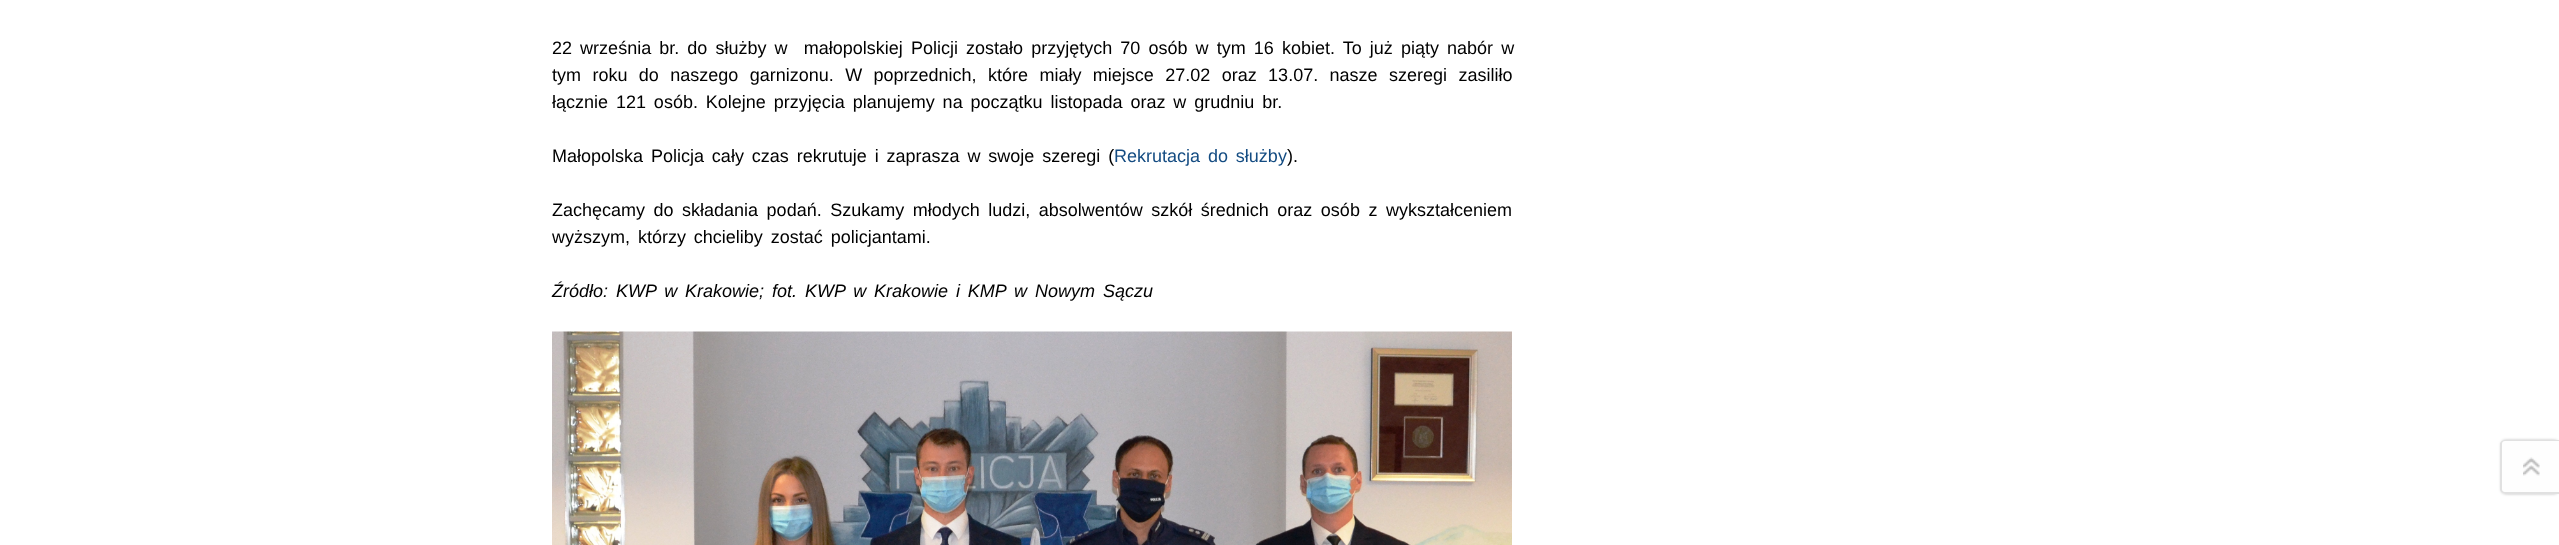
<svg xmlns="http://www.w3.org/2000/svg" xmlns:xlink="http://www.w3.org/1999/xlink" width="2559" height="545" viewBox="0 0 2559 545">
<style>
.cls-1{font:18px Liberation Sans;fill:#000000}
.cls-2{font:18px Liberation Sans;fill:#144c82}
.cls-3{font:italic 18px Liberation Sans;fill:#000000}
</style>
<rect width="100%" height="100%" fill="#ffffff"/>
<image xlink:href="image0.png" x="552" y="331" width="960" height="214"/>
<rect fill="#000000" fill-opacity="0.25" filter="blur(1.5px)" x="2501" y="440" width="58" height="54" rx="5"/>
<path fill="#fefefe" d="M2506 440H2559V494H2506C2503 494 2501 492 2501 489V445C2501 442 2503 440 2506 440Z"/>
<path fill="#e1e1e1" fill-rule="evenodd" d="M2505 440H2559V494H2505C2503 494 2500 491 2500 489V444C2500 442 2503 440 2505 440ZM2505 441H2559V492H2505C2503 492 2502 491 2502 489V444C2502 442 2503 441 2505 441Z"/>
<image xlink:href="image1.png" x="2523" y="457" width="17" height="19"/>
<text class="cls-1" xml:space="preserve"><tspan x="552" y="54" word-spacing="3.1">22 września br. do służby w  małopolskiej Policji zostało przyjętych 70 osób w tym 16 kobiet. To już piąty nabór w</tspan><tspan x="552" y="81" word-spacing="6.4">tym roku do naszego garnizonu. W poprzednich, które miały miejsce 27.02 oraz 13.07. nasze szeregi zasiliło</tspan><tspan x="552" y="108" word-spacing="2.9">łącznie 121 osób. Kolejne przyjęcia planujemy na początku listopada oraz w grudniu br.</tspan></text>
<text class="cls-1" x="552" y="162" word-spacing="2.9">Małopolska Policja cały czas rekrutuje i zaprasza w swoje szeregi (</text>
<text class="cls-2" x="1114" y="162" word-spacing="2.9">Rekrutacja do służby</text>
<text class="cls-1" x="1287" y="162">).</text>
<text class="cls-1"><tspan x="552" y="216" word-spacing="3.5">Zachęcamy do składania podań. Szukamy młodych ludzi, absolwentów szkół średnich oraz osób z wykształceniem</tspan><tspan x="552" y="243" word-spacing="2.9">wyższym, którzy chcieliby zostać policjantami.</tspan></text>
<text class="cls-3" x="552" y="297" word-spacing="2.9">Źródło: KWP w Krakowie; fot. KWP w Krakowie i KMP w Nowym Sączu</text>
</svg>
